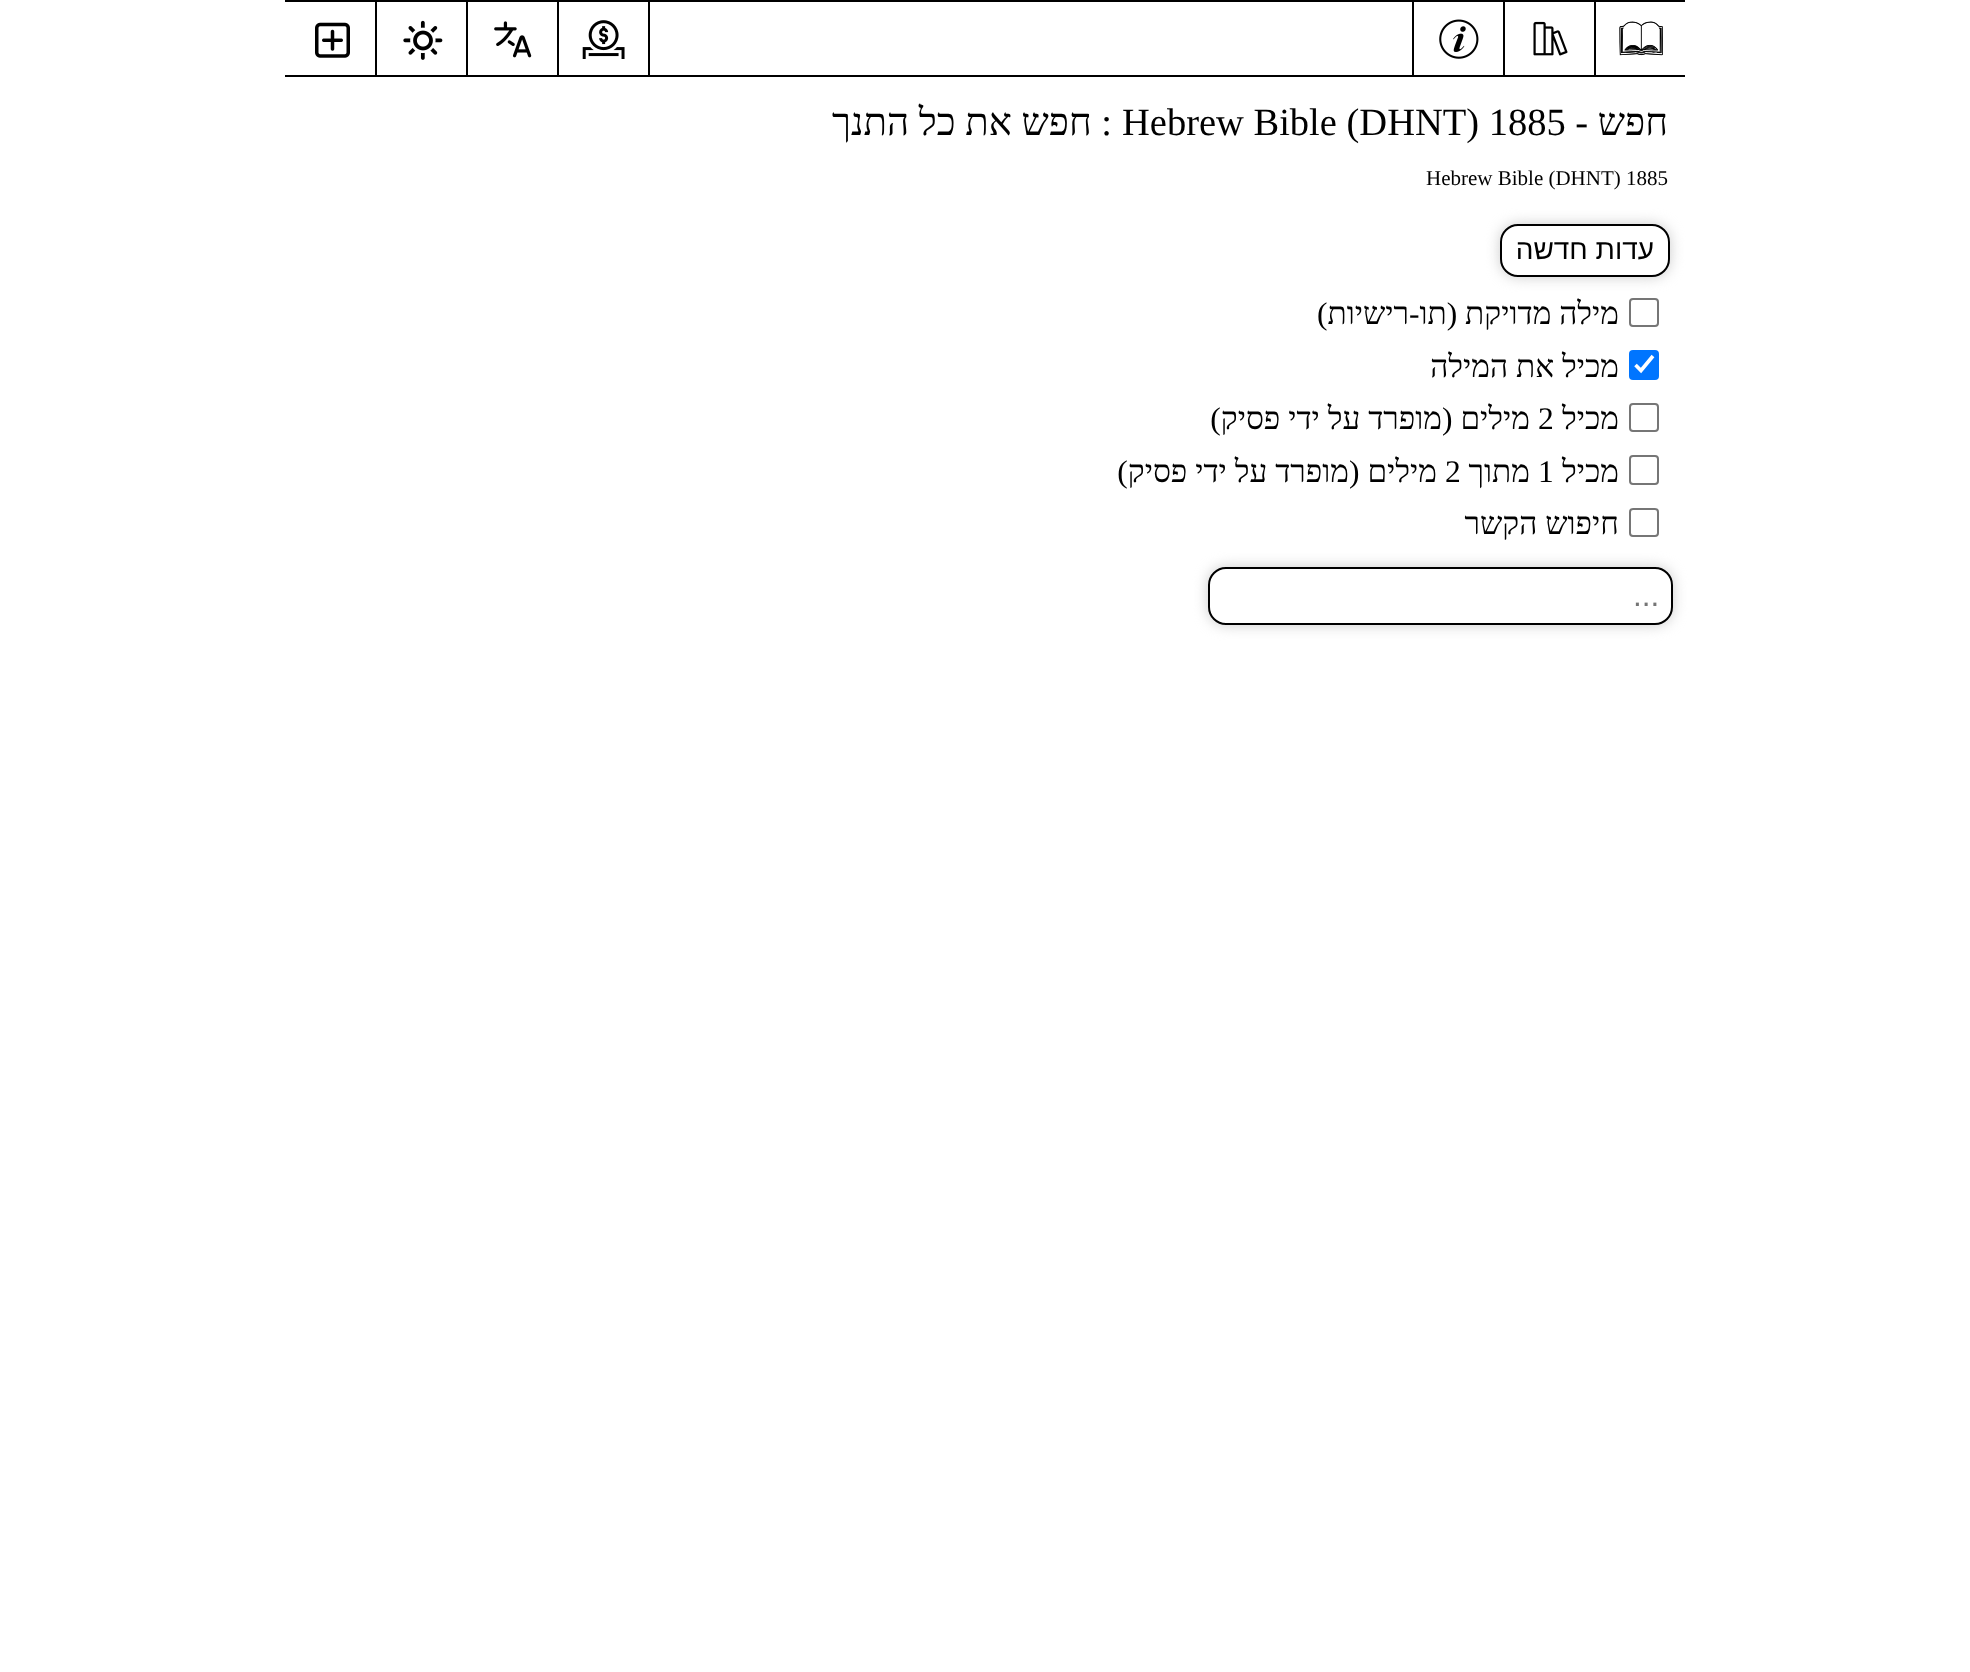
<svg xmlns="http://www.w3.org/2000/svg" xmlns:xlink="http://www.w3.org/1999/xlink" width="1970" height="1672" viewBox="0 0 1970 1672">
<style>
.cls-1{font:38.5px Liberation Serif;direction:rtl;fill:#000000}
.cls-2{font:38.5px Liberation Serif;fill:#000000}
.cls-3{font:21px Liberation Serif;fill:#000000}
.cls-4{font:28px Liberation Sans;direction:rtl;fill:#000000}
.cls-5{font:31.5px Liberation Serif;direction:rtl;fill:#000000}
.cls-6{font:31.5px Liberation Serif;fill:#000000}
.cls-7{font:31.5px Liberation Sans;fill:#757575}
</style>
<rect width="100%" height="100%" fill="#ffffff"/>
<rect fill="#000000" x="285" y="0" width="1400" height="2"/>
<image xlink:href="image0.png" x="1619" y="21" width="44" height="35"/>
<rect fill="#000000" x="1594" y="2" width="2" height="75"/>
<image xlink:href="image1.png" x="1533" y="21" width="35" height="35"/>
<rect fill="#000000" x="1503" y="2" width="2" height="75"/>
<rect fill="#000000" x="1412" y="2" width="2" height="75"/>
<image xlink:href="image2.png" x="1439" y="19" width="40" height="40"/>
<rect fill="#000000" x="285" y="75" width="1400" height="2"/>
<rect fill="#000000" x="648" y="2" width="2" height="75"/>
<image xlink:href="image3.png" x="582" y="20" width="43" height="39"/>
<rect fill="#000000" x="557" y="2" width="2" height="75"/>
<image xlink:href="image4.png" x="494" y="21" width="38" height="37"/>
<rect fill="#000000" x="466" y="2" width="2" height="75"/>
<rect fill="#000000" x="375" y="2" width="2" height="75"/>
<image xlink:href="image5.png" x="403" y="20" width="40" height="40"/>
<image xlink:href="image6.png" x="315" y="22" width="35" height="36"/>
<rect fill="#cccccc" filter="blur(7px)" x="1500" y="224" width="170" height="53" rx="18"/>
<rect fill="#ffffff" stroke="#000000" stroke-width="2" x="1501" y="225" width="168" height="51" rx="17"/>
<rect fill="none" stroke="#767676" stroke-width="2" x="1630" y="299" width="28" height="27" rx="3"/>
<rect fill="#0075ff" x="1629" y="350" width="30" height="30" rx="4"/>
<path fill="none" stroke="#ffffff" stroke-width="3.6" d="M1635.5 365L1641 370.5L1653 356"/>
<rect fill="none" stroke="#767676" stroke-width="2" x="1630" y="404" width="28" height="27" rx="3"/>
<rect fill="none" stroke="#767676" stroke-width="2" x="1630" y="456" width="28" height="28" rx="3"/>
<rect fill="none" stroke="#767676" stroke-width="2" x="1630" y="509" width="28" height="27" rx="3"/>
<rect fill="#cccccc" filter="blur(7px)" x="1208" y="567" width="465" height="58" rx="18"/>
<rect fill="#ffffff" stroke="#000000" stroke-width="2" x="1209" y="568" width="463" height="56" rx="17"/>
<text class="cls-1" x="1668" y="135">חפש -</text>
<text class="cls-2" x="1122" y="135">Hebrew Bible (DHNT) 1885</text>
<text class="cls-1" x="1112" y="135">: חפש את כל התנך</text>
<text class="cls-3" x="1426" y="185">Hebrew Bible (DHNT) 1885</text>
<text class="cls-4" x="1654" y="259">עדות חדשה</text>
<text class="cls-5"><tspan x="1619" y="324">מילה מדויקת (תו-רישיות)</tspan><tspan x="1619" y="377">מכיל את המילה</tspan><tspan x="1619" y="429">מכיל</tspan></text>
<text class="cls-6" x="1538" y="429">2</text>
<text class="cls-5" x="1530" y="429">מילים (מופרד על ידי פסיק)</text>
<text class="cls-5" x="1619" y="482">מכיל</text>
<text class="cls-6" x="1538" y="482">1</text>
<text class="cls-5" x="1530" y="482">מתוך</text>
<text class="cls-6" x="1445" y="482">2</text>
<text class="cls-5" x="1437" y="482">מילים (מופרד על ידי פסיק)</text>
<text class="cls-5" x="1619" y="534">חיפוש הקשר</text>
<text class="cls-7" x="1633" y="606">...</text>
</svg>
